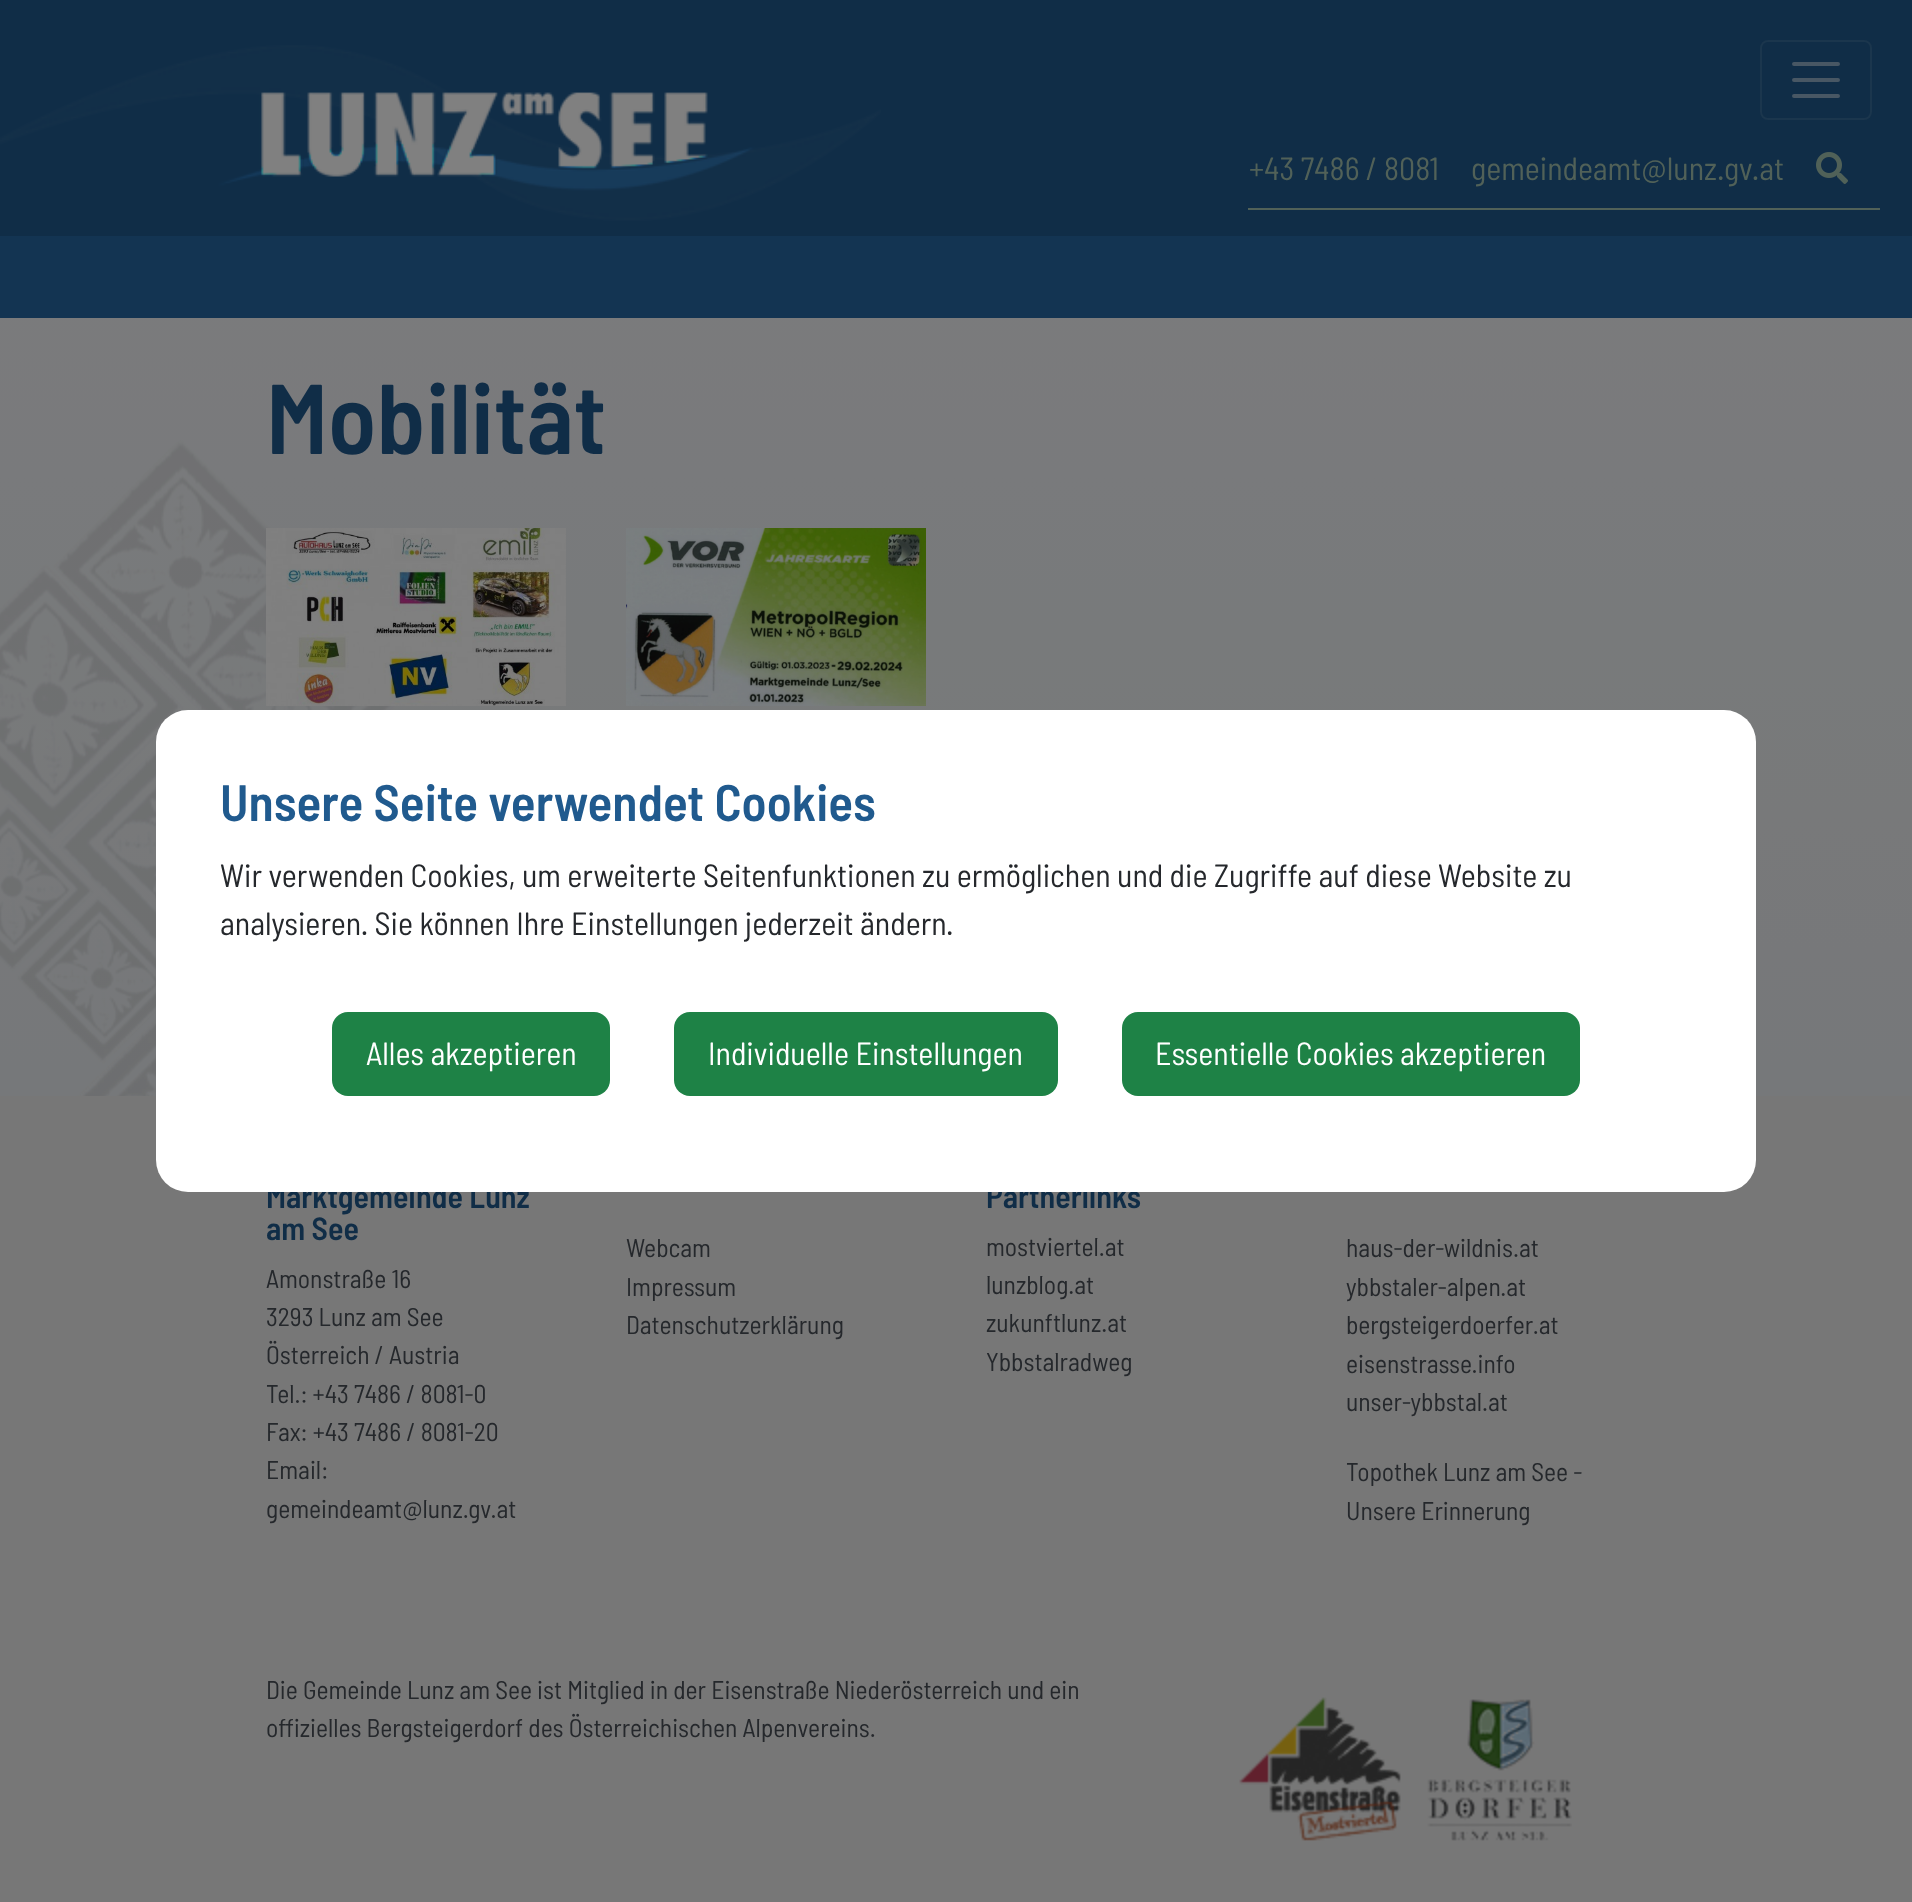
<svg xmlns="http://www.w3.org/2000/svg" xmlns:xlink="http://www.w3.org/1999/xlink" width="1912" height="1902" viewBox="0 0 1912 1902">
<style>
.cls-1{font:32px Barlow Semi Condensed;fill:#516158}
.cls-2{font:600 99px Barlow Semi Condensed;fill:#102d47}
.cls-3{font:600 32px Barlow Semi Condensed;fill:#102d47}
.cls-4{font:25.6px Barlow Semi Condensed;fill:#25282c}
.cls-5{font:32px Barlow Semi Condensed;fill:#25282c}
.cls-6{font:600 51.25px Barlow Semi Condensed;fill:#205a8e}
.cls-7{font:32px Barlow Semi Condensed;fill:#ffffff}
</style>
<rect width="100%" height="100%" fill="#ffffff"/>
<image xlink:href="image0.png" x="0" y="318" width="1912" height="778"/>
<rect fill="#102d47" x="0" y="0" width="1912" height="236"/>
<rect fill="#133452" x="0" y="236" width="1912" height="82"/>
<image xlink:href="image1.png" x="0" y="45" width="881" height="176"/>
<rect fill="#516158" x="1248" y="208" width="632" height="2"/>
<image xlink:href="image2.png" x="1816" y="152" width="32" height="32"/>
<rect fill="none" stroke="#1b364d" stroke-width="2" x="1761" y="41" width="110" height="78" rx="7"/>
<path fill="none" stroke="#485764" stroke-width="4" stroke-linecap="round" d="M1794 64H1838M1794 80H1838M1794 96H1838"/>
<image xlink:href="image3.png" x="266" y="528" width="300" height="178"/>
<image xlink:href="image4.png" x="626" y="528" width="300" height="178"/>
<rect fill="#777777" x="0" y="1096" width="1912" height="806"/>
<image xlink:href="image5.png" x="1239" y="1697" width="333" height="144"/>
<text class="cls-1" x="1249" y="180">+43 7486 / 8081</text>
<text class="cls-1" x="1471" y="180">gemeindeamt@lunz.gv.at</text>
<text class="cls-2" x="266" y="454">Mobilität</text>
<text class="cls-3"><tspan x="266" y="1208">Marktgemeinde Lunz</tspan><tspan x="266" y="1240">am See</tspan></text>
<text class="cls-4"><tspan x="266" y="1288">Amonstraße 16</tspan><tspan x="266" y="1326">3293 Lunz am See</tspan><tspan x="266" y="1364">Österreich / Austria</tspan><tspan x="266" y="1403">Tel.: +43 7486 / 8081-0</tspan><tspan x="266" y="1441">Fax: +43 7486 / 8081-20</tspan><tspan x="266" y="1479">Email:</tspan><tspan x="266" y="1518">gemeindeamt@lunz.gv.at</tspan></text>
<text class="cls-4"><tspan x="626" y="1257">Webcam</tspan><tspan x="626" y="1296">Impressum</tspan><tspan x="626" y="1334">Datenschutzerklärung</tspan></text>
<text class="cls-3" x="986" y="1208">Partnerlinks</text>
<rect fill="#ffffff" x="156" y="710" width="1600" height="482" rx="32"/>
<text class="cls-5" x="220" y="935">analysieren. Sie können Ihre Einstellungen jederzeit ändern.</text>
<text class="cls-5" x="220" y="887">Wir verwenden Cookies, um erweiterte Seitenfunktionen zu ermöglichen und die Zugriffe auf diese Website zu</text>
<text class="cls-6" x="220" y="821">Unsere Seite verwendet Cookies</text>
<rect fill="#1e8246" x="1122" y="1012" width="458" height="84" rx="16"/>
<text class="cls-7" x="1155" y="1065">Essentielle Cookies akzeptieren</text>
<rect fill="#1e8246" x="674" y="1012" width="384" height="84" rx="16"/>
<text class="cls-7" x="708" y="1065">Individuelle Einstellungen</text>
<rect fill="#1e8246" x="332" y="1012" width="278" height="84" rx="16"/>
<text class="cls-7" x="366" y="1065">Alles akzeptieren</text>
<text class="cls-4"><tspan x="986" y="1256">mostviertel.at</tspan><tspan x="986" y="1294">lunzblog.at</tspan><tspan x="986" y="1332">zukunftlunz.at</tspan><tspan x="986" y="1371">Ybbstalradweg</tspan></text>
<text class="cls-4"><tspan x="1346" y="1257">haus-der-wildnis.at</tspan><tspan x="1346" y="1296">ybbstaler-alpen.at</tspan><tspan x="1346" y="1334">bergsteigerdoerfer.at</tspan><tspan x="1346" y="1373">eisenstrasse.info</tspan><tspan x="1346" y="1411">unser-ybbstal.at</tspan></text>
<text class="cls-4"><tspan x="1346" y="1481">Topothek Lunz am See -</tspan><tspan x="1346" y="1520">Unsere Erinnerung</tspan></text>
<text class="cls-4"><tspan x="266" y="1699">Die Gemeinde Lunz am See ist Mitglied in der Eisenstraße Niederösterreich und ein</tspan><tspan x="266" y="1737">offizielles Bergsteigerdorf des Österreichischen Alpenvereins.</tspan></text>
</svg>
